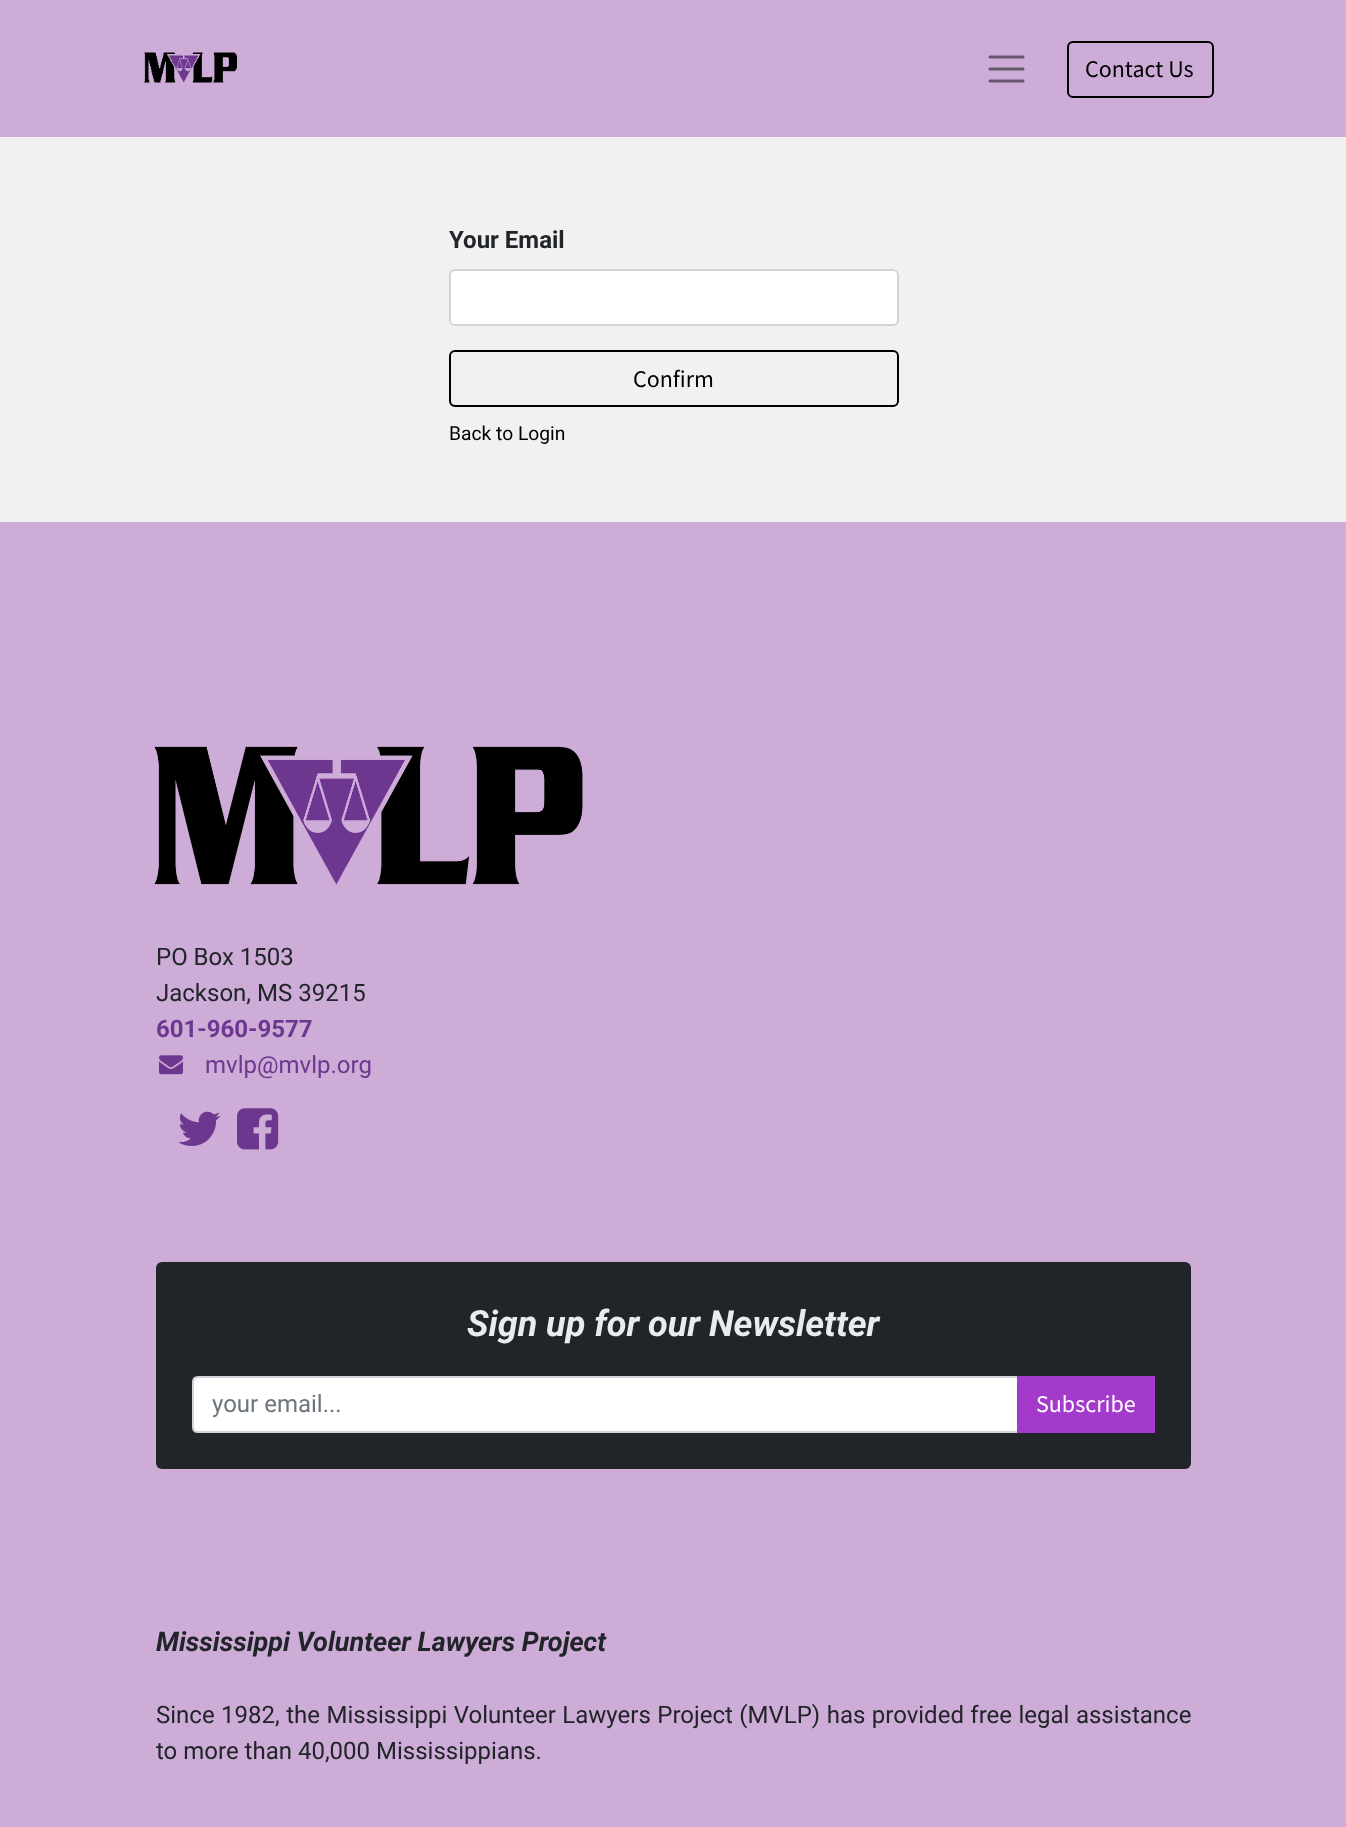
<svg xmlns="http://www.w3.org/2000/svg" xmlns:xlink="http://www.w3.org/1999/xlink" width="1346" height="1827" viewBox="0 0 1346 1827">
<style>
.cls-1{font:24px Source Sans Pro;fill:#000000}
.cls-2{font:bold 24px Roboto;fill:#212529}
.cls-3{font:19.25px Roboto;fill:#000000}
.cls-4{font:24px Roboto;fill:#212529}
.cls-5{font:bold 24px Roboto;fill:#6d378f}
.cls-6{font:24px Roboto;fill:#6d378f}
.cls-7{font:italic bold 36px Roboto;fill:#e9ecef}
.cls-8{font:24px Roboto;fill:#6c757d}
.cls-9{font:24px Source Sans Pro;fill:#ffffff}
.cls-10{font:italic bold 27px Roboto;fill:#212529}
</style>
<rect width="100%" height="100%" fill="#f2f1f2"/>
<rect fill="#cdacd7" x="0" y="0" width="1346" height="137"/>
<image xlink:href="image0.png" x="144" y="52" width="93" height="31"/>
<path fill="none" stroke="#67566c" stroke-width="3" stroke-linecap="round" d="M990 57H1023M990 69H1023M990 81H1023"/>
<rect fill="none" stroke="#000000" stroke-width="2" x="1068" y="42" width="145" height="55" rx="5"/>
<rect fill="#ffffff" stroke="#ced4da" stroke-width="2" x="450" y="270" width="448" height="55" rx="5"/>
<rect fill="none" stroke="#000000" stroke-width="2" x="450" y="351" width="448" height="55" rx="5"/>
<rect fill="#cdacd7" x="0" y="522" width="1346" height="1305"/>
<image xlink:href="image1.png" x="154" y="746" width="429" height="139"/>
<image xlink:href="image2.png" x="159" y="1055" width="24" height="20"/>
<image xlink:href="image3.png" x="178" y="1111" width="43" height="35"/>
<image xlink:href="image4.png" x="237" y="1108" width="42" height="42"/>
<rect fill="#212529" x="156" y="1262" width="1035" height="207" rx="6"/>
<path fill="#ffffff" stroke="#ced4da" stroke-width="2" d="M198 1377H1018V1432H198C195 1432 193 1430 193 1427V1382C193 1379 195 1377 198 1377Z"/>
<rect fill="#a43acb" x="1017" y="1376" width="138" height="57"/>
<text class="cls-1" x="1085" y="77">Contact Us</text>
<text class="cls-2" x="449" y="248">Your Email</text>
<text class="cls-1" x="633" y="387">Confirm</text>
<text class="cls-3" x="449" y="440">Back to Login</text>
<text class="cls-4"><tspan x="156" y="965">PO Box 1503</tspan><tspan x="156" y="1001">Jackson, MS 39215</tspan></text>
<text class="cls-5" x="156" y="1037">601-960-9577</text>
<text class="cls-6" x="205" y="1073">mvlp@mvlp.org</text>
<text class="cls-7" x="467" y="1336">Sign up for our Newsletter</text>
<text class="cls-8" x="212" y="1412">your email...</text>
<text class="cls-9" x="1036" y="1412">Subscribe</text>
<text class="cls-10" x="156" y="1651">Mississippi Volunteer Lawyers Project</text>
<text class="cls-4"><tspan x="156" y="1723" word-spacing="0.5">Since 1982, the Mississippi Volunteer Lawyers Project (MVLP) has provided free legal assistance</tspan><tspan x="156" y="1759">to more than 40,000 Mississippians.</tspan></text>
</svg>
